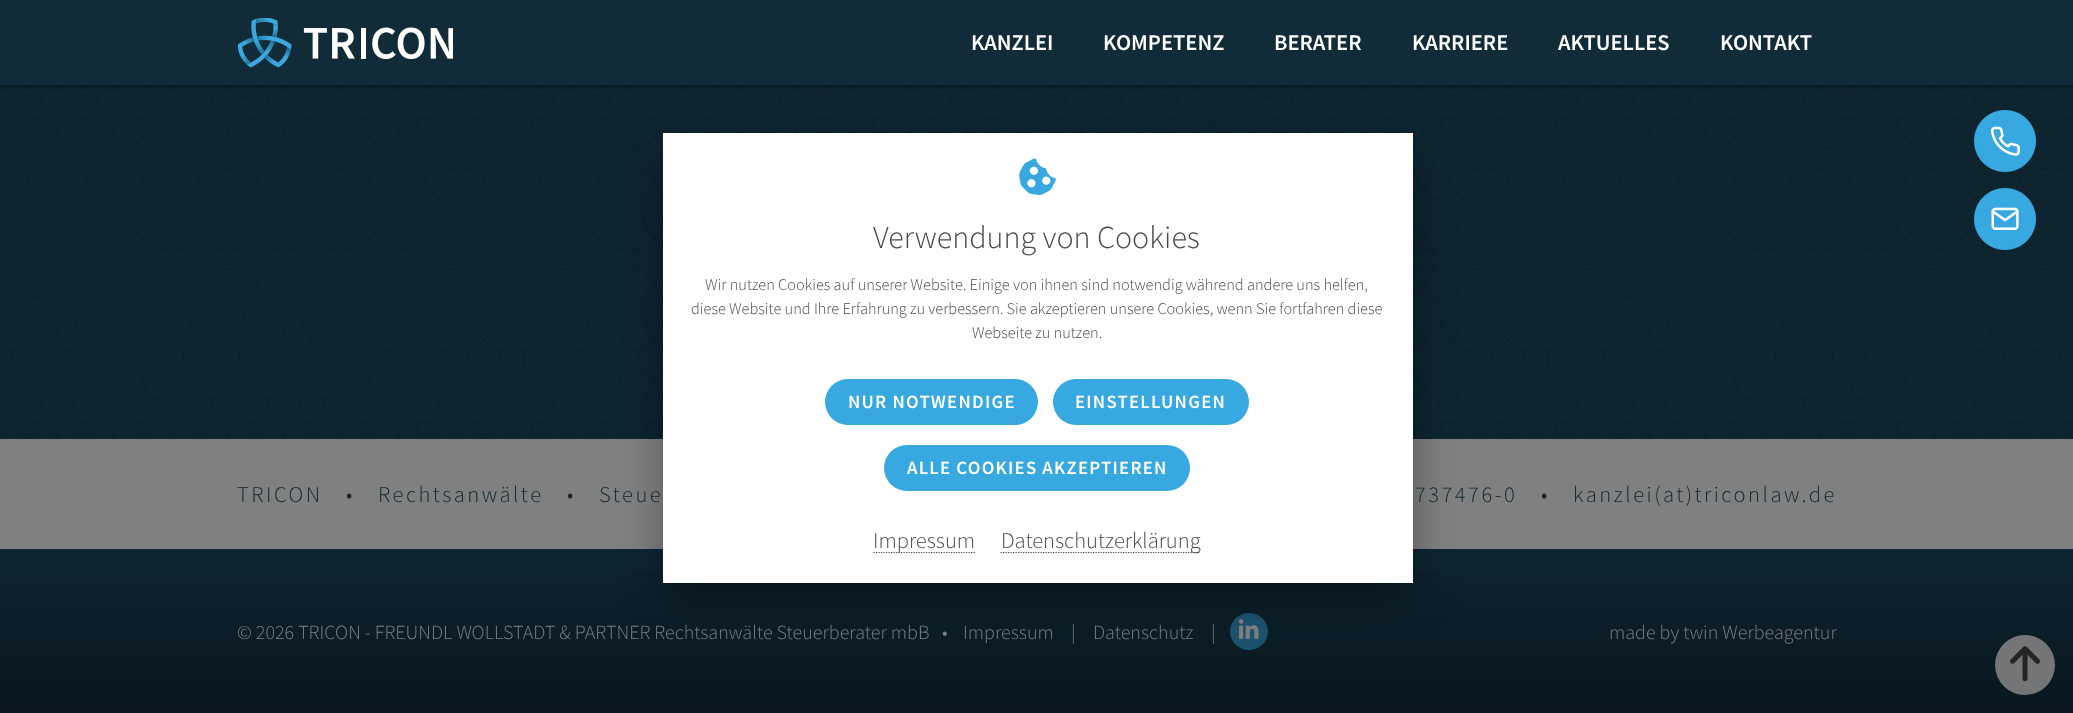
<svg xmlns="http://www.w3.org/2000/svg" xmlns:xlink="http://www.w3.org/1999/xlink" width="2073" height="713" viewBox="0 0 2073 713">
<style>
.cls-1{font:600 22.5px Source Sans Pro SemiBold;fill:#ffffff}
.cls-2{font:300 32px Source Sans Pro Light;fill:#4a4748}
.cls-3{font:300 16.25px Source Sans Pro Light;fill:#4a4748}
.cls-4{font:600 18.75px Source Sans Pro SemiBold;letter-spacing:1.25px;fill:#ffffff}
.cls-5{font:300 22.5px Source Sans Pro Light;fill:#4a4748}
.cls-6{font:300 22.5px Source Sans Pro Light;letter-spacing:2.5px;fill:#0e2530}
.cls-7{font:300 20px Source Sans Pro Light;fill:#808080}
</style>
<defs>
<linearGradient id="g1" gradientUnits="userSpaceOnUse" x1="1037" y1="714" x2="1037" y2="549"><stop offset="0" stop-color="#09161d"/><stop offset="1" stop-color="#0e2530"/></linearGradient>
</defs>
<rect width="100%" height="100%" fill="#0e2530"/>
<image xlink:href="image3.png" x="0" y="85" width="2073" height="354"/>
<rect fill="#000000" fill-opacity="0.5" filter="blur(2px)" x="0" y="1" width="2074" height="85"/>
<rect fill="#112b39" x="0" y="0" width="2073" height="85"/>
<image xlink:href="image0.png" x="238" y="18" width="215" height="50"/>
<image xlink:href="image1.png" x="1974" y="110" width="62" height="62"/>
<image xlink:href="image2.png" x="1974" y="188" width="62" height="62"/>
<rect fill="#808080" x="0" y="439" width="2073" height="110"/>
<rect fill="url(#g1)" x="0" y="571" width="2073" height="142"/>
<rect fill="#1c5470" x="1230" y="613" width="38" height="37" rx="18.5"/>
<image xlink:href="image5.png" x="1238" y="619" width="21" height="20"/>
<rect fill="#000000" fill-opacity="0.32" filter="blur(20px)" x="663" y="153" width="750" height="450"/>
<rect fill="#ffffff" x="663" y="133" width="750" height="450"/>
<image xlink:href="image4.png" x="1019" y="158" width="38" height="38"/>
<rect fill="#38a8e0" x="825" y="379" width="213" height="46" rx="23"/>
<rect fill="#38a8e0" x="1053" y="379" width="196" height="46" rx="23"/>
<rect fill="#38a8e0" x="884" y="445" width="306" height="46" rx="23"/>
<path fill="none" stroke="#4a4748" stroke-width="1.2" stroke-dasharray="1.25 1.25" d="M873.5 552.5H975.5"/>
<path fill="none" stroke="#4a4748" stroke-width="1.2" stroke-dasharray="1.25 1.25" d="M1000.5 552.5H1200.5"/>
<circle fill="#808080" fill-opacity="0.9" cx="2025" cy="665" r="30"/>
<image xlink:href="image6.png" x="2010" y="646" width="30" height="36"/>
<text class="cls-1" x="971" y="50">KANZLEI</text>
<text class="cls-1" x="1103" y="50">KOMPETENZ</text>
<text class="cls-1" x="1274" y="50">BERATER</text>
<text class="cls-1" x="1412" y="50">KARRIERE</text>
<text class="cls-1" x="1558" y="50">AKTUELLES</text>
<text class="cls-1" x="1720" y="50">KONTAKT</text>
<text class="cls-2" x="873" y="248">Verwendung von Cookies</text>
<text class="cls-3" x="705" y="290">Wir nutzen Cookies auf unserer Website. Einige von ihnen sind notwendig während andere uns helfen,</text>
<text class="cls-3" x="691" y="314">diese Website und Ihre Erfahrung zu verbessern. Sie akzeptieren unsere Cookies, wenn Sie fortfahren diese</text>
<text class="cls-3" x="972" y="338">Webseite zu nutzen.</text>
<text class="cls-4" x="848" y="408">NUR NOTWENDIGE</text>
<text class="cls-4" x="1075" y="408">EINSTELLUNGEN</text>
<text class="cls-4" x="907" y="474">ALLE COOKIES AKZEPTIEREN</text>
<text class="cls-5" x="873" y="548">Impressum</text>
<text class="cls-5" x="1001" y="548">Datenschutzerklärung</text>
<text class="cls-6" x="237" y="502">TRICON</text>
<text class="cls-6" x="346" y="502">•</text>
<text class="cls-6" x="378" y="502">Rechtsanwälte</text>
<text class="cls-6" x="567" y="502">•</text>
<text class="cls-6" x="599" y="502">Steue</text>
<text class="cls-6" x="1415" y="502">737476-0</text>
<text class="cls-6" x="1541" y="502">•</text>
<text class="cls-6" x="1573" y="502">kanzlei(at)triconlaw.de</text>
<text class="cls-7" x="237" y="639">© 2026 TRICON - FREUNDL WOLLSTADT &amp; PARTNER Rechtsanwälte Steuerberater mbB</text>
<text class="cls-7" x="942" y="639">•</text>
<text class="cls-7" x="963" y="639">Impressum</text>
<text class="cls-7" x="1071" y="639">|</text>
<text class="cls-7" x="1093" y="639">Datenschutz</text>
<text class="cls-7" x="1211" y="639">|</text>
<text class="cls-7" x="1609" y="639">made by twin Werbeagentur</text>
</svg>
